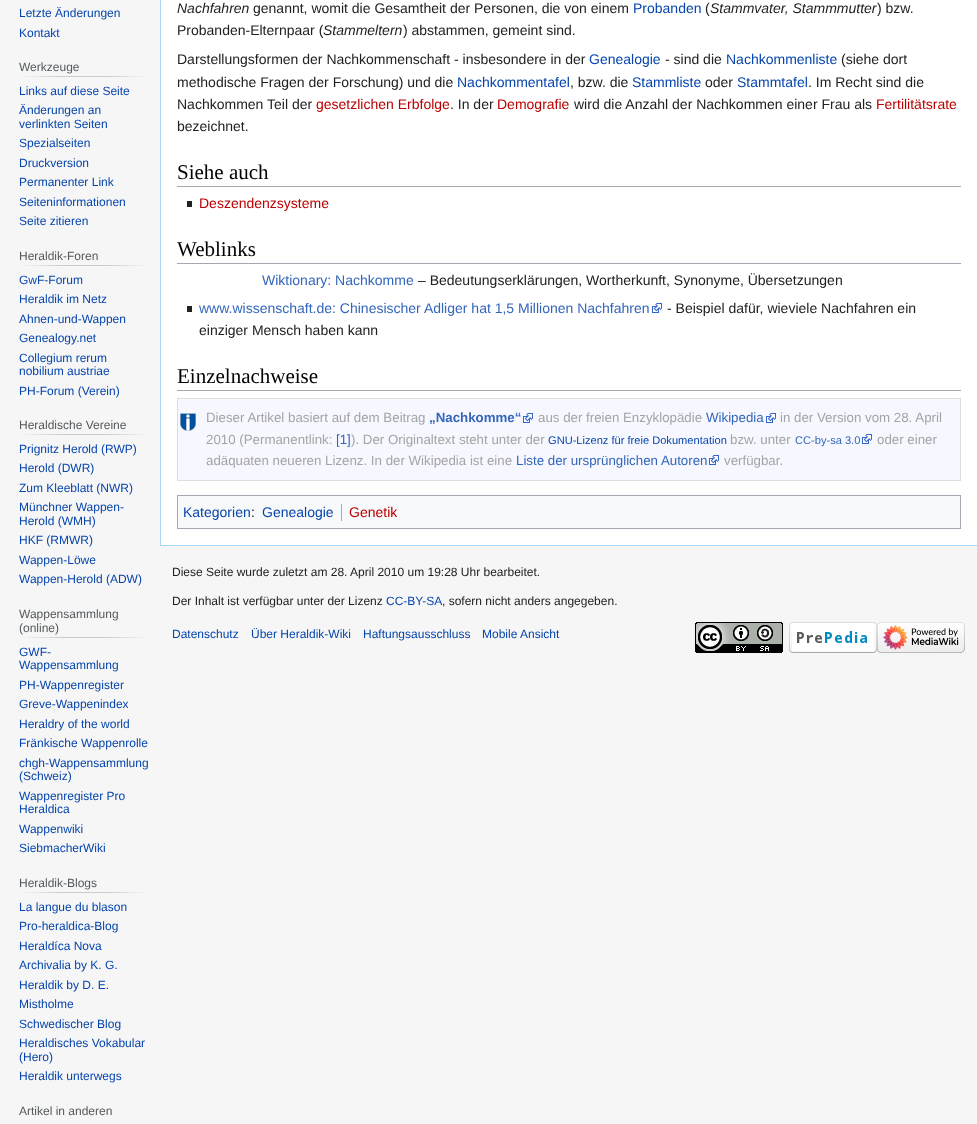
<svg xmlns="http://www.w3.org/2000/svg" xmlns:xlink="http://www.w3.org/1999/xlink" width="977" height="1124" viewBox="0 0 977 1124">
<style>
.cls-1{font:12px Liberation Sans;fill:#0645ad}
.cls-2{font:12px Liberation Sans;fill:#54595d}
.cls-3{font:italic 14px Liberation Sans;fill:#202122}
.cls-4{font:14px Liberation Sans;fill:#202122}
.cls-5{font:14px Liberation Sans;fill:#0645ad}
.cls-6{font:14px Liberation Sans;fill:#ba0000}
.cls-7{font:21px Liberation Serif;fill:#000000}
.cls-8{font:14px Liberation Sans;fill:#3366bb}
.cls-9{font:13.3px Liberation Sans;fill:#a4a4a4}
.cls-10{font:bold 13.3px Liberation Sans;fill:#3366bb}
.cls-11{font:13.3px Liberation Sans;fill:#3366bb}
.cls-12{font:11.1px Liberation Sans;fill:#0645ad}
.cls-13{font:11.1px Liberation Sans;fill:#3366bb}
.cls-14{font:12px Liberation Sans;fill:#202122}
</style>
<defs>
<linearGradient id="g1" gradientUnits="userSpaceOnUse" x1="19" y1="77" x2="150" y2="77"><stop offset="0" stop-color="#f6f6f6"/><stop offset="0.33" stop-color="#c8ccd1"/><stop offset="0.66" stop-color="#c8ccd1"/><stop offset="1" stop-color="#f6f6f6"/></linearGradient>
<linearGradient id="g2" gradientUnits="userSpaceOnUse" x1="19" y1="266" x2="150" y2="266"><stop offset="0" stop-color="#f6f6f6"/><stop offset="0.33" stop-color="#c8ccd1"/><stop offset="0.66" stop-color="#c8ccd1"/><stop offset="1" stop-color="#f6f6f6"/></linearGradient>
<linearGradient id="g3" gradientUnits="userSpaceOnUse" x1="19" y1="435" x2="150" y2="435"><stop offset="0" stop-color="#f6f6f6"/><stop offset="0.33" stop-color="#c8ccd1"/><stop offset="0.66" stop-color="#c8ccd1"/><stop offset="1" stop-color="#f6f6f6"/></linearGradient>
<linearGradient id="g4" gradientUnits="userSpaceOnUse" x1="19" y1="638" x2="150" y2="638"><stop offset="0" stop-color="#f6f6f6"/><stop offset="0.33" stop-color="#c8ccd1"/><stop offset="0.66" stop-color="#c8ccd1"/><stop offset="1" stop-color="#f6f6f6"/></linearGradient>
<linearGradient id="g5" gradientUnits="userSpaceOnUse" x1="19" y1="893" x2="150" y2="893"><stop offset="0" stop-color="#f6f6f6"/><stop offset="0.33" stop-color="#c8ccd1"/><stop offset="0.66" stop-color="#c8ccd1"/><stop offset="1" stop-color="#f6f6f6"/></linearGradient>
</defs>
<rect width="100%" height="100%" fill="#f6f6f6"/>
<rect fill="url(#g1)" x="19" y="76" width="131" height="1"/>
<rect fill="url(#g2)" x="19" y="265" width="131" height="1"/>
<rect fill="url(#g3)" x="19" y="434" width="131" height="1"/>
<rect fill="url(#g4)" x="19" y="637" width="131" height="1"/>
<rect fill="url(#g5)" x="19" y="892" width="131" height="1"/>
<rect fill="#ffffff" x="161" y="0" width="816" height="545"/>
<rect fill="#a7d7f9" x="160" y="545" width="817" height="1"/>
<rect fill="#a7d7f9" x="160" y="0" width="1" height="546"/>
<rect fill="#a2a9b1" x="177" y="186" width="784" height="1"/>
<rect fill="#202122" x="187" y="201" width="5" height="6"/>
<rect fill="#a2a9b1" x="177" y="263" width="784" height="1"/>
<rect fill="#202122" x="187" y="306" width="5" height="6"/>
<image xlink:href="image0.png" x="652" y="303" width="10" height="10"/>
<rect fill="#a2a9b1" x="177" y="390" width="784" height="1"/>
<rect fill="#f7f8ff" stroke="#dddddd" x="177.5" y="398.5" width="783" height="82"/>
<image xlink:href="image1.png" x="180" y="413" width="16" height="18"/>
<image xlink:href="image2.png" x="523" y="413" width="10" height="10"/>
<image xlink:href="image2.png" x="766" y="413" width="10" height="10"/>
<image xlink:href="image2.png" x="862" y="434" width="10" height="10"/>
<image xlink:href="image2.png" x="709" y="455" width="10" height="10"/>
<rect fill="#f8f9fa" stroke="#a2a9b1" x="177.5" y="495.5" width="783" height="33"/>
<rect fill="#a2a9b1" x="341" y="504" width="1" height="17"/>
<image xlink:href="image3.png" x="695" y="622" width="88" height="31"/>
<image xlink:href="image4.png" x="789" y="622" width="88" height="31"/>
<image xlink:href="image5.png" x="877" y="622" width="88" height="31"/>
<text class="cls-1"><tspan x="19" y="17">Letzte Änderungen</tspan><tspan x="19" y="37">Kontakt</tspan></text>
<text class="cls-2" x="19" y="71">Werkzeuge</text>
<text class="cls-1"><tspan x="19" y="95">Links auf diese Seite</tspan><tspan x="19" y="114">Änderungen an</tspan><tspan x="19" y="128">verlinkten Seiten</tspan><tspan x="19" y="147">Spezialseiten</tspan><tspan x="19" y="167">Druckversion</tspan><tspan x="19" y="186">Permanenter Link</tspan><tspan x="19" y="206">Seiteninformationen</tspan><tspan x="19" y="225">Seite zitieren</tspan></text>
<text class="cls-2" x="19" y="260">Heraldik-Foren</text>
<text class="cls-1"><tspan x="19" y="284">GwF-Forum</tspan><tspan x="19" y="303">Heraldik im Netz</tspan><tspan x="19" y="323">Ahnen-und-Wappen</tspan><tspan x="19" y="342">Genealogy.net</tspan><tspan x="19" y="362">Collegium rerum</tspan><tspan x="19" y="375">nobilium austriae</tspan><tspan x="19" y="395">PH-Forum (Verein)</tspan></text>
<text class="cls-2" x="19" y="429">Heraldische Vereine</text>
<text class="cls-1"><tspan x="19" y="453">Prignitz Herold (RWP)</tspan><tspan x="19" y="472">Herold (DWR)</tspan><tspan x="19" y="492">Zum Kleeblatt (NWR)</tspan><tspan x="19" y="511">Münchner Wappen-</tspan><tspan x="19" y="525">Herold (WMH)</tspan><tspan x="19" y="544">HKF (RMWR)</tspan><tspan x="19" y="564">Wappen-Löwe</tspan><tspan x="19" y="583">Wappen-Herold (ADW)</tspan></text>
<text class="cls-2"><tspan x="19" y="618">Wappensammlung</tspan><tspan x="19" y="632">(online)</tspan></text>
<text class="cls-1"><tspan x="19" y="656">GWF-</tspan><tspan x="19" y="669">Wappensammlung</tspan><tspan x="19" y="689">PH-Wappenregister</tspan><tspan x="19" y="708">Greve-Wappenindex</tspan><tspan x="19" y="728">Heraldry of the world</tspan><tspan x="19" y="747">Fränkische Wappenrolle</tspan><tspan x="19" y="767">chgh-Wappensammlung</tspan><tspan x="19" y="780">(Schweiz)</tspan><tspan x="19" y="800">Wappenregister Pro</tspan><tspan x="19" y="813">Heraldica</tspan><tspan x="19" y="833">Wappenwiki</tspan><tspan x="19" y="852">SiebmacherWiki</tspan></text>
<text class="cls-2" x="19" y="887">Heraldik-Blogs</text>
<text class="cls-1"><tspan x="19" y="911">La langue du blason</tspan><tspan x="19" y="930">Pro-heraldica-Blog</tspan><tspan x="19" y="950">Heraldíca Nova</tspan><tspan x="19" y="969">Archivalia by K. G.</tspan><tspan x="19" y="989">Heraldik by D. E.</tspan><tspan x="19" y="1008">Mistholme</tspan><tspan x="19" y="1028">Schwedischer Blog</tspan><tspan x="19" y="1047">Heraldisches Vokabular</tspan><tspan x="19" y="1061">(Hero)</tspan><tspan x="19" y="1080">Heraldik unterwegs</tspan></text>
<text class="cls-2" x="19" y="1115">Artikel in anderen</text>
<text class="cls-3" x="177" y="13">Nachfahren</text>
<text class="cls-4" x="253" y="13">genannt, womit die Gesamtheit der Personen, die von einem</text>
<text class="cls-5" x="633" y="13">Probanden</text>
<text class="cls-4" x="705" y="13">(</text>
<text class="cls-3" x="710" y="13">Stammvater, Stammmutter</text>
<text class="cls-4" x="877" y="13">) bzw.</text>
<text class="cls-4" x="177" y="35">Probanden-Elternpaar (</text>
<text class="cls-3" x="323" y="35">Stammeltern</text>
<text class="cls-4" x="403" y="35">) abstammen, gemeint sind.</text>
<text class="cls-4" x="177" y="64">Darstellungsformen der Nachkommenschaft - insbesondere in der</text>
<text class="cls-5" x="589" y="64">Genealogie</text>
<text class="cls-4" x="665" y="64">- sind die</text>
<text class="cls-5" x="726" y="64">Nachkommenliste</text>
<text class="cls-4" x="841" y="64">(siehe dort</text>
<text class="cls-4" x="177" y="87">methodische Fragen der Forschung) und die</text>
<text class="cls-5" x="457" y="87">Nachkommentafel</text>
<text class="cls-4" x="570" y="87">, bzw. die</text>
<text class="cls-5" x="632" y="87">Stammliste</text>
<text class="cls-4" x="705" y="87">oder</text>
<text class="cls-5" x="737" y="87">Stammtafel</text>
<text class="cls-4" x="808" y="87">. Im Recht sind die</text>
<text class="cls-4" x="177" y="109">Nachkommen Teil der</text>
<text class="cls-6" x="316" y="109">gesetzlichen Erbfolge</text>
<text class="cls-4" x="450" y="109">. In der</text>
<text class="cls-6" x="497" y="109">Demografie</text>
<text class="cls-4" x="574" y="109">wird die Anzahl der Nachkommen einer Frau als</text>
<text class="cls-6" x="876" y="109">Fertilitätsrate</text>
<text class="cls-4" x="177" y="131">bezeichnet.</text>
<text class="cls-7" x="177" y="179">Siehe auch</text>
<text class="cls-6" x="199" y="208">Deszendenzsysteme</text>
<text class="cls-7" x="177" y="256">Weblinks</text>
<text class="cls-8" x="262" y="285">Wiktionary: Nachkomme</text>
<text class="cls-4" x="418" y="285">– Bedeutungserklärungen, Wortherkunft, Synonyme, Übersetzungen</text>
<text class="cls-8" x="199" y="313">www.wissenschaft.de: Chinesischer Adliger hat 1,5 Millionen Nachfahren</text>
<text class="cls-4" x="667" y="313">- Beispiel dafür, wieviele Nachfahren ein</text>
<text class="cls-4" x="199" y="335">einziger Mensch haben kann</text>
<text class="cls-7" x="177" y="383">Einzelnachweise</text>
<text class="cls-9" x="206" y="422">Dieser Artikel basiert auf dem Beitrag</text>
<text class="cls-10" x="429" y="422">„Nachkomme“</text>
<text class="cls-9" x="538" y="422">aus der freien Enzyklopädie</text>
<text class="cls-11" x="706" y="422">Wikipedia</text>
<text class="cls-9" x="780" y="422">in der Version vom 28. April</text>
<text class="cls-9" x="206" y="444">2010 (Permanentlink:</text>
<text class="cls-11" x="336" y="444">[1]</text>
<text class="cls-9" x="351" y="444">). Der Originaltext steht unter der</text>
<text class="cls-12" x="548" y="444">GNU-Lizenz für freie Dokumentation</text>
<text class="cls-9" x="730" y="444">bzw. unter</text>
<text class="cls-13" x="795" y="444">CC-by-sa 3.0</text>
<text class="cls-9" x="877" y="444">oder einer</text>
<text class="cls-9" x="206" y="465">adäquaten neueren Lizenz. In der Wikipedia ist eine</text>
<text class="cls-11" x="516" y="465">Liste der ursprünglichen Autoren</text>
<text class="cls-9" x="724" y="465">verfügbar.</text>
<text class="cls-5" x="183" y="517">Kategorien</text>
<text class="cls-4" x="251" y="517">:</text>
<text class="cls-5" x="262" y="517">Genealogie</text>
<text class="cls-6" x="349" y="517">Genetik</text>
<text class="cls-14" x="172" y="576">Diese Seite wurde zuletzt am 28. April 2010 um 19:28 Uhr bearbeitet.</text>
<text class="cls-14" x="172" y="605">Der Inhalt ist verfügbar unter der Lizenz</text>
<text class="cls-1" x="386" y="605">CC-BY-SA</text>
<text class="cls-14" x="442" y="605">, sofern nicht anders angegeben.</text>
<text class="cls-1" x="172" y="638">Datenschutz</text>
<text class="cls-1" x="251" y="638">Über Heraldik-Wiki</text>
<text class="cls-1" x="363" y="638">Haftungsausschluss</text>
<text class="cls-1" x="482" y="638">Mobile Ansicht</text>
</svg>
